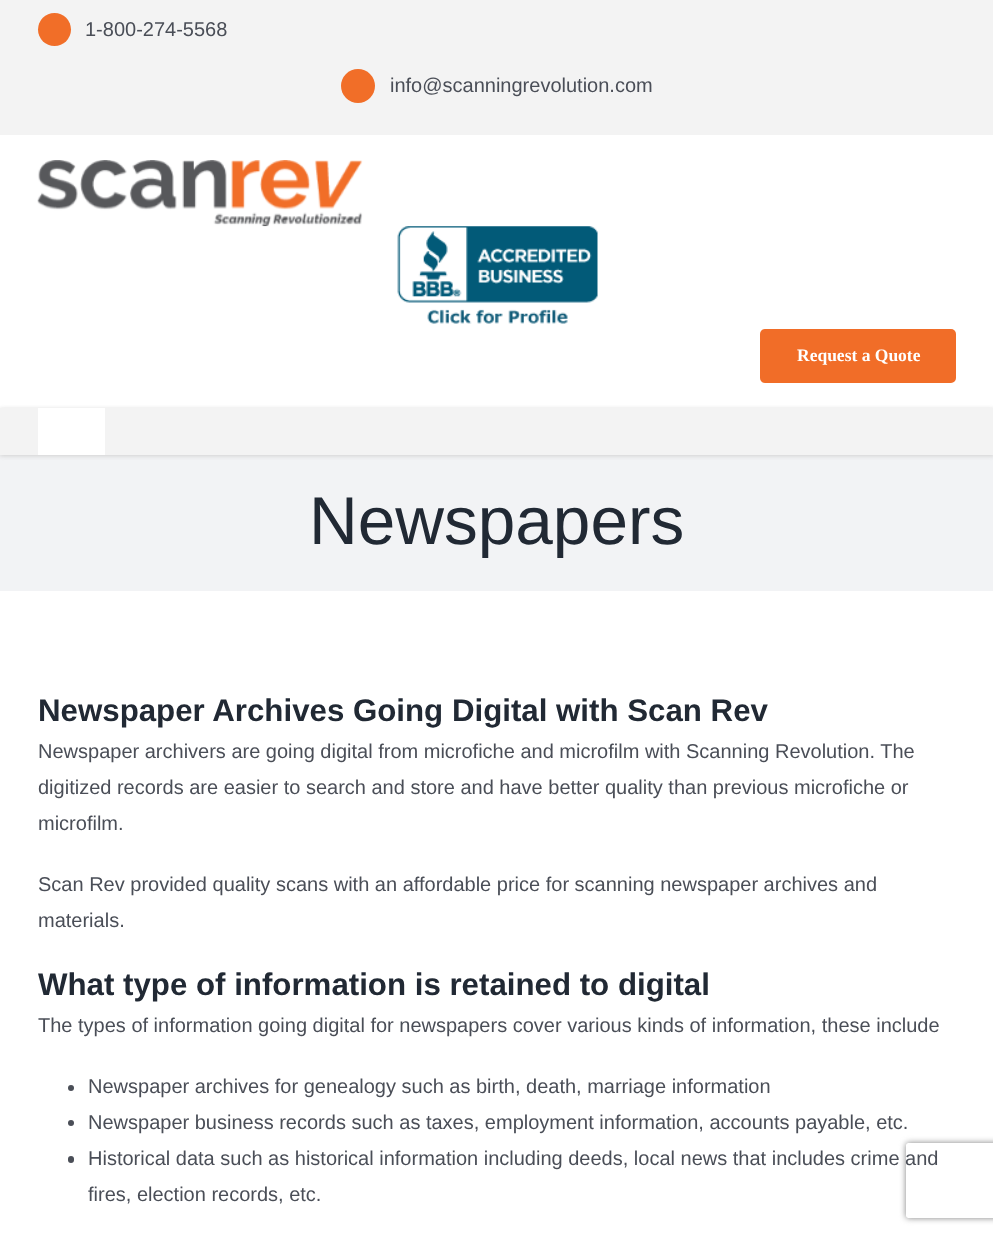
<svg xmlns="http://www.w3.org/2000/svg" xmlns:xlink="http://www.w3.org/1999/xlink" width="993" height="1234" viewBox="0 0 993 1234">
<style>
.cls-1{font:20px Liberation Sans;fill:#4a4e57}
.cls-2{font:bold 17.5px Liberation Serif;fill:#ffffff}
.cls-3{font:67.5px Liberation Sans;fill:#212934}
.cls-4{font:bold 31.25px Liberation Sans;fill:#212934}
</style>
<defs>
<clipPath id="clip1"><path d="M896 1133H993V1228H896ZM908.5 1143H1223.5C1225 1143 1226 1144 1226 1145.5V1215.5C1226 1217 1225 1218 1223.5 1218H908.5C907 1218 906 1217 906 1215.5V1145.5C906 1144 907 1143 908.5 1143Z" clip-rule="evenodd"/></clipPath>
</defs>
<rect width="100%" height="100%" fill="#ffffff"/>
<rect fill="#f3f3f3" x="0" y="0" width="993" height="135"/>
<circle fill="#f16e28" cx="54.5" cy="29.5" r="16.5"/>
<circle fill="#f16e28" cx="358" cy="86" r="17"/>
<image xlink:href="image0.png" x="37" y="160" width="326" height="67"/>
<image xlink:href="image1.png" x="397" y="226" width="201" height="98"/>
<rect fill="#f16d28" x="760" y="329" width="196" height="54" rx="5"/>
<rect fill="#f2f3f5" x="0" y="455" width="993" height="136"/>
<rect fill="#d0d0d0" filter="blur(2px)" x="0" y="409" width="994" height="47"/>
<rect fill="#f3f3f3" x="0" y="408" width="993" height="47"/>
<rect fill="#ffffff" x="38" y="408" width="67" height="47"/>
<circle fill="#4a4e57" cx="71" cy="1088" r="3"/>
<circle fill="#4a4e57" cx="71" cy="1123" r="3"/>
<rect fill="#4a4e57" x="68" y="1156" width="6" height="7" rx="3"/>
<g clip-path="url(#clip1)">
<rect fill="#808080" filter="blur(3px)" x="906" y="1143" width="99" height="75" rx="2.5"/>
</g>
<text class="cls-1" x="85" y="36">1-800-274-5568</text>
<text class="cls-1" x="390" y="92">info@scanningrevolution.com</text>
<text class="cls-2" x="797" y="361">Request a Quote</text>
<text class="cls-3" x="309" y="544">Newspapers</text>
<text class="cls-4" x="38" y="721">Newspaper Archives Going Digital with Scan Rev</text>
<text class="cls-1"><tspan x="38" y="758">Newspaper archivers are going digital from microfiche and microfilm with Scanning Revolution. The</tspan><tspan x="38" y="794">digitized records are easier to search and store and have better quality than previous microfiche or</tspan><tspan x="38" y="830">microfilm.</tspan></text>
<text class="cls-1"><tspan x="38" y="891">Scan Rev provided quality scans with an affordable price for scanning newspaper archives and</tspan><tspan x="38" y="927">materials.</tspan></text>
<text class="cls-4" x="38" y="995">What type of information is retained to digital</text>
<text class="cls-1" x="38" y="1032">The types of information going digital for newspapers cover various kinds of information, these include</text>
<text class="cls-1"><tspan x="88" y="1093">Newspaper archives for genealogy such as birth, death, marriage information</tspan><tspan x="88" y="1129">Newspaper business records such as taxes, employment information, accounts payable, etc.</tspan><tspan x="88" y="1165">Historical data such as historical information including deeds, local news that includes crime and</tspan><tspan x="88" y="1201">fires, election records, etc.</tspan></text>
</svg>
